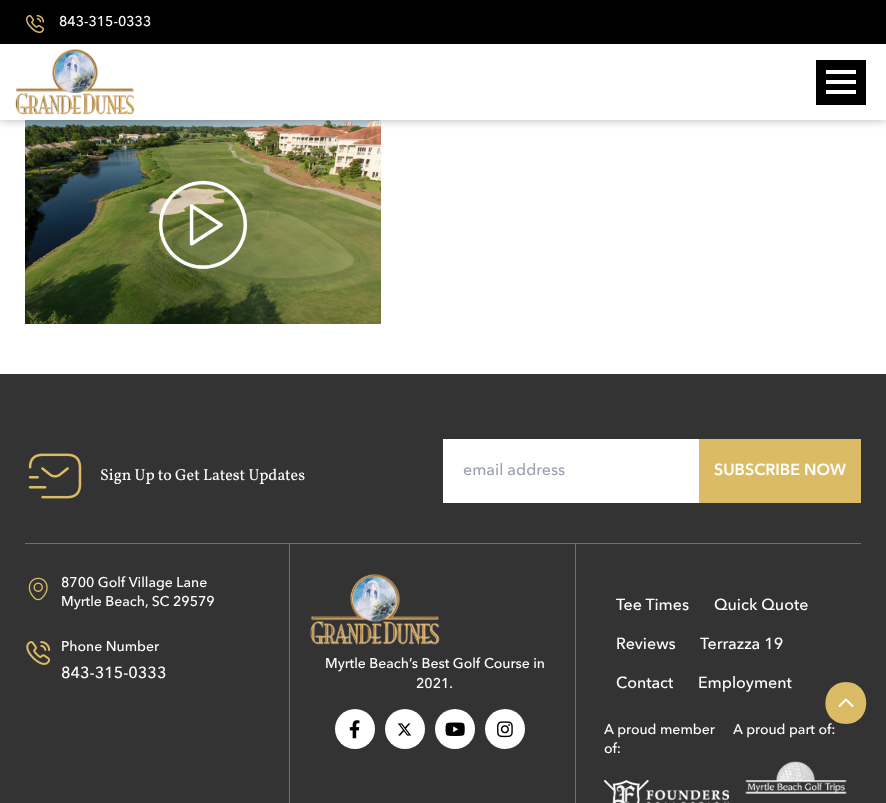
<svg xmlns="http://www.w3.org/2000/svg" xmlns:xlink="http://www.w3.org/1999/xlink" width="886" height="803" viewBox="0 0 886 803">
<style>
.cls-1{font:500 14px Avenir Next;fill:#ffffff}
.cls-2{font:16px Vollkorn;fill:#ffffff}
.cls-3{font:500 16px Avenir Next;fill:#9ca3af}
.cls-4{font:600 16px Avenir Next;fill:#ffffff}
.cls-5{font:500 16px Avenir Next;fill:#ffffff}
</style>
<rect width="100%" height="100%" fill="#ffffff"/>
<rect fill="#000000" x="0" y="0" width="886" height="44"/>
<image xlink:href="image2.png" x="25" y="120" width="356" height="204"/>
<rect fill="#000000" fill-opacity="0.3" filter="blur(5px)" x="0" y="44" width="886" height="76"/>
<image xlink:href="image0.png" x="26" y="15" width="18" height="18"/>
<rect fill="#ffffff" x="0" y="44" width="886" height="76"/>
<image xlink:href="image1.png" x="15" y="49" width="120" height="66"/>
<rect fill="#000000" x="816" y="60" width="50" height="45"/>
<rect fill="#ffffff" x="826" y="70" width="30" height="4"/>
<rect fill="#ffffff" x="826" y="80" width="30" height="4"/>
<rect fill="#ffffff" x="826" y="90" width="30" height="4"/>
<rect fill="#333333" x="0" y="374" width="886" height="429"/>
<image xlink:href="image3.png" x="28" y="453" width="54" height="46"/>
<rect fill="#ffffff" x="443" y="439" width="256" height="64"/>
<rect fill="#dbbb65" x="699" y="439" width="162" height="64"/>
<rect fill="#707070" x="25" y="543" width="836" height="1"/>
<rect fill="#707070" x="289" y="544" width="1" height="259"/>
<image xlink:href="image4.png" x="28" y="577" width="20" height="24"/>
<image xlink:href="image5.png" x="26" y="641" width="25" height="24"/>
<rect fill="#707070" x="575" y="544" width="1" height="259"/>
<image xlink:href="image6.png" x="310" y="574" width="130" height="71"/>
<circle fill="#ffffff" cx="355" cy="729" r="20"/>
<image xlink:href="image7.png" x="349" y="720" width="11" height="19"/>
<circle fill="#ffffff" cx="405" cy="729" r="20"/>
<image xlink:href="image8.png" x="397" y="723" width="15" height="13"/>
<circle fill="#ffffff" cx="455" cy="729" r="20"/>
<image xlink:href="image9.png" x="445" y="722" width="20" height="14"/>
<circle fill="#ffffff" cx="505" cy="729" r="20"/>
<image xlink:href="image10.png" x="497" y="721" width="16" height="17"/>
<image xlink:href="image11.png" x="604" y="780" width="125" height="23"/>
<image xlink:href="image12.png" x="745" y="761" width="102" height="33"/>
<text class="cls-1" x="59" y="26">843-315-0333</text>
<text class="cls-2" x="100" y="480">Sign Up to Get Latest Updates</text>
<text class="cls-3" x="463" y="475">email address</text>
<text class="cls-4" x="714" y="475">SUBSCRIBE NOW</text>
<text class="cls-1"><tspan x="61" y="587">8700 Golf Village Lane</tspan><tspan x="61" y="606">Myrtle Beach, SC 29579</tspan></text>
<text class="cls-1" x="61" y="651">Phone Number</text>
<text class="cls-5" x="61" y="678">843-315-0333</text>
<text class="cls-1" x="325" y="668">Myrtle Beach’s Best Golf Course in</text>
<text class="cls-1" x="416" y="688">2021.</text>
<text class="cls-5" x="616" y="610">Tee Times</text>
<text class="cls-5" x="714" y="610">Quick Quote</text>
<text class="cls-5" x="616" y="649">Reviews</text>
<text class="cls-5" x="700" y="649">Terrazza 19</text>
<text class="cls-5" x="616" y="688">Contact</text>
<text class="cls-5" x="698" y="688">Employment</text>
<text class="cls-1"><tspan x="604" y="734">A proud member</tspan><tspan x="604" y="753">of:</tspan></text>
<text class="cls-1" x="733" y="734">A proud part of:</text>
<path fill="#dbbb65" d="M846 682C873 682 873 724 846 724C818 724 819 682 846 682Z"/>
<path fill="none" stroke="#ffffff" stroke-width="2" stroke-linecap="round" stroke-linejoin="round" d="M852.5 706L846 699.5L839.5 706"/>
</svg>
